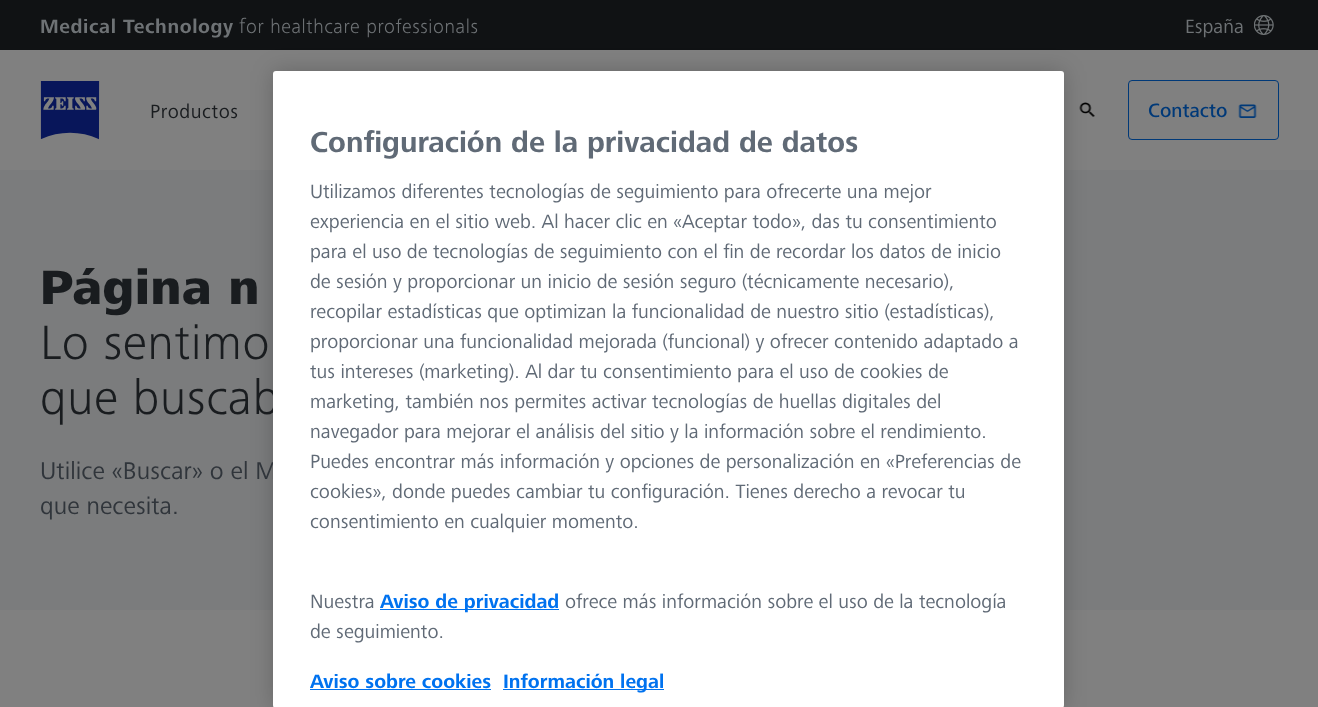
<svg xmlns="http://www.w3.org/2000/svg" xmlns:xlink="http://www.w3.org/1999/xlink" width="1318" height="707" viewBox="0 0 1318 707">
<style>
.cls-1{font:bold 20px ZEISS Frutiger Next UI;letter-spacing:0.6px;fill:#6e7275}
.cls-2{font:300 20px Noto Sans;letter-spacing:0.6px;fill:#6e7275}
.cls-3{font:300 20px ZEISS Frutiger Next UI;letter-spacing:0.6px;fill:#6e7275}
.cls-4{font:20px ZEISS Frutiger Next UI;fill:#6e7275}
.cls-5{font:20px ZEISS Frutiger Next UI;letter-spacing:0.6px;fill:#191c1f}
.cls-6{font:500 20px ZEISS Frutiger Next UI;fill:#003978}
.cls-7{font:900 50px ZEISS Frutiger Next UI;letter-spacing:0.75px;fill:#191c1f}
.cls-8{font:300 50px ZEISS Frutiger Next UI;letter-spacing:0.75px;fill:#191c1f}
.cls-9{font:25px ZEISS Frutiger Next UI;letter-spacing:0.1px;fill:#30353b}
.cls-10{font:bold 30px ZEISS Frutiger Next UI;fill:#606a76}
.cls-11{font:20px ZEISS Frutiger Next UI;fill:#606a76}
.cls-12{font:bold 20px ZEISS Frutiger Next UI;fill:#0072ef}
</style>
<rect width="100%" height="100%" fill="#808080"/>
<rect fill="#101214" x="0" y="0" width="1318" height="50"/>
<image xlink:href="image0.png" x="1254" y="15" width="20" height="20"/>
<image xlink:href="image1.png" x="40" y="81" width="60" height="59"/>
<image xlink:href="image2.png" x="1079" y="102" width="16" height="15"/>
<rect fill="none" stroke="#003978" x="1128.5" y="80.5" width="150" height="59" rx="3.5"/>
<image xlink:href="image3.png" x="1238" y="104" width="19" height="14"/>
<rect fill="#7b7c7d" x="0" y="170" width="1318" height="440"/>
<rect fill="#000000" fill-opacity="0.2" filter="blur(11px)" x="273" y="71" width="791" height="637" rx="3"/>
<text class="cls-1" x="40" y="33">Medical Technology</text>
<text class="cls-2" x="239" y="33">f</text>
<text class="cls-3" x="246" y="33">or healthcare professionals</text>
<text class="cls-4" x="1185" y="33">España</text>
<text class="cls-5" x="150" y="118">Productos</text>
<text class="cls-6" x="1148" y="117">Contacto</text>
<text class="cls-7" x="40" y="304">Página n</text>
<text class="cls-8"><tspan x="40" y="359">Lo sentimo</tspan><tspan x="40" y="414">que buscab</tspan></text>
<text class="cls-9"><tspan x="40" y="479">Utilice «Buscar» o el M</tspan><tspan x="40" y="514">que necesita.</tspan></text>
<rect fill="#ffffff" x="273" y="71" width="791" height="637" rx="3"/>
<text class="cls-10" x="310" y="152">Configuración de la privacidad de datos</text>
<text class="cls-11"><tspan x="310" y="198">Utilizamos diferentes tecnologías de seguimiento para ofrecerte una mejor</tspan><tspan x="310" y="228">experiencia en el sitio web. Al hacer clic en «Aceptar todo», das tu consentimiento</tspan><tspan x="310" y="258">para el uso de tecnologías de seguimiento con el fin de recordar los datos de inicio</tspan><tspan x="310" y="288">de sesión y proporcionar un inicio de sesión seguro (técnicamente necesario),</tspan><tspan x="310" y="318">recopilar estadísticas que optimizan la funcionalidad de nuestro sitio (estadísticas),</tspan><tspan x="310" y="348">proporcionar una funcionalidad mejorada (funcional) y ofrecer contenido adaptado a</tspan><tspan x="310" y="378">tus intereses (marketing). Al dar tu consentimiento para el uso de cookies de</tspan><tspan x="310" y="408">marketing, también nos permites activar tecnologías de huellas digitales del</tspan><tspan x="310" y="438">navegador para mejorar el análisis del sitio y la información sobre el rendimiento.</tspan><tspan x="310" y="468">Puedes encontrar más información y opciones de personalización en «Preferencias de</tspan><tspan x="310" y="498">cookies», donde puedes cambiar tu configuración. Tienes derecho a revocar tu</tspan><tspan x="310" y="528">consentimiento en cualquier momento.</tspan></text>
<text class="cls-11" x="310" y="608">Nuestra</text>
<rect fill="#0072ef" x="380" y="609" width="179" height="1"/>
<text class="cls-12" x="380" y="608">Aviso de privacidad</text>
<text class="cls-11" x="565" y="608">ofrece más información sobre el uso de la tecnología</text>
<text class="cls-11" x="310" y="638">de seguimiento.</text>
<text class="cls-12" x="310" y="688">Aviso sobre cookies</text>
<rect fill="#0072ef" x="310" y="689" width="181" height="1"/>
<rect fill="#0072ef" x="503" y="689" width="161" height="1"/>
<text class="cls-12" x="503" y="688">Información legal</text>
</svg>
